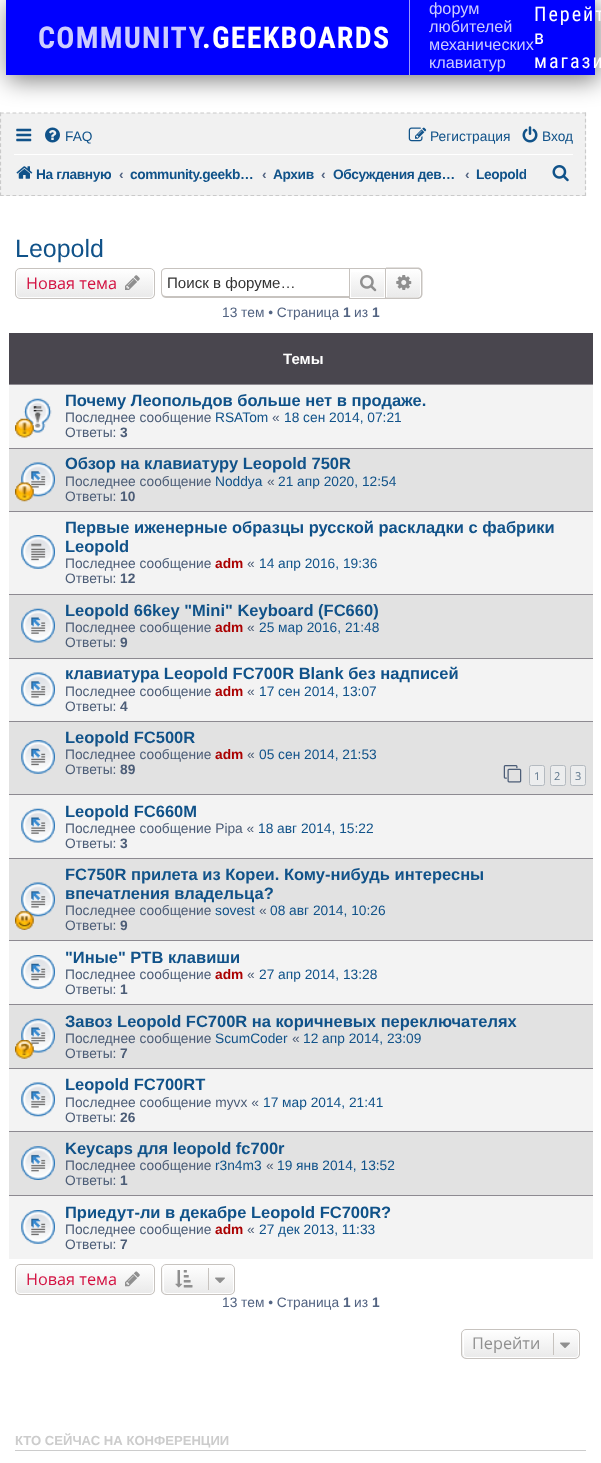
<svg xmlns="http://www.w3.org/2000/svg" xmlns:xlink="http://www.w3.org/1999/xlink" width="601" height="1463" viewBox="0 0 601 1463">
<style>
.cls-1{font:bold 30px Roboto Condensed;letter-spacing:1.25px;fill:#ccccff}
.cls-2{font:bold 30px Roboto Condensed;letter-spacing:1.25px;fill:#ffffff}
.cls-3{font:16.25px Liberation Sans;fill:#ccccff}
.cls-4{font:20px Roboto Condensed;letter-spacing:2px;fill:#ffffff}
.cls-5{font:13.75px Liberation Sans;fill:#105289}
.cls-6{font:bold 13.75px Liberation Sans;letter-spacing:-0.4px;fill:#105289}
.cls-7{font:bold 13.75px Liberation Sans;fill:#536482}
.cls-8{font:25px Liberation Sans;fill:#105289}
.cls-9{font:16.25px Open Sans;fill:#d31141}
.cls-10{font:15.1px Liberation Sans;fill:#333333}
.cls-11{font:13.75px Liberation Sans;fill:#536482}
.cls-12{font:bold 15px Liberation Sans;fill:#ffffff}
.cls-13{font:bold 16.5px Liberation Sans;fill:#105289}
.cls-14{font:13.75px Liberation Sans;fill:#4c5d77}
.cls-15{font:bold 13.75px Liberation Sans;fill:#4c5d77}
.cls-16{font:bold 13.75px Liberation Sans;fill:#aa0000}
.cls-17{font:11px Open Sans;fill:#5c758c}
.cls-18{font:16.25px Open Sans;fill:#8f8f8f}
.cls-19{font:bold 13.1px Liberation Sans;fill:#cccccc}
</style>
<defs>
<clipPath id="clip1"><rect x="15" y="268" width="140" height="31" rx="5"/></clipPath>
<linearGradient id="g1" gradientUnits="userSpaceOnUse" x1="85" y1="269" x2="85" y2="298"><stop offset="0" stop-color="#ffffff"/><stop offset="1" stop-color="#e9e9e9"/></linearGradient>
<linearGradient id="g2" gradientUnits="userSpaceOnUse" x1="368" y1="269" x2="368" y2="298"><stop offset="0" stop-color="#ffffff"/><stop offset="1" stop-color="#e9e9e9"/></linearGradient>
<linearGradient id="g3" gradientUnits="userSpaceOnUse" x1="404" y1="269" x2="404" y2="298"><stop offset="0" stop-color="#ffffff"/><stop offset="1" stop-color="#e9e9e9"/></linearGradient>
<clipPath id="clip2"><rect x="15" y="1264" width="140" height="31" rx="5"/></clipPath>
<linearGradient id="g4" gradientUnits="userSpaceOnUse" x1="85" y1="1265" x2="85" y2="1294"><stop offset="0" stop-color="#ffffff"/><stop offset="1" stop-color="#e9e9e9"/></linearGradient>
<clipPath id="clip3"><rect x="161" y="1264" width="74" height="31" rx="5"/></clipPath>
<linearGradient id="g5" gradientUnits="userSpaceOnUse" x1="198" y1="1265" x2="198" y2="1294"><stop offset="0" stop-color="#ffffff"/><stop offset="1" stop-color="#e9e9e9"/></linearGradient>
<clipPath id="clip4"><rect x="461" y="1329" width="119" height="30" rx="5"/></clipPath>
<linearGradient id="g6" gradientUnits="userSpaceOnUse" x1="521" y1="1330" x2="521" y2="1358"><stop offset="0" stop-color="#ffffff"/><stop offset="1" stop-color="#e9e9e9"/></linearGradient>
<clipPath id="clip5"><rect x="14" y="159" width="97" height="30"/></clipPath>
<clipPath id="clip6"><rect x="476" y="159" width="50" height="30"/></clipPath>
<clipPath id="clip7"><rect x="166" y="274" width="174" height="17"/></clipPath>
</defs>
<rect width="100%" height="100%" fill="#ffffff"/>
<rect fill="#000000" fill-opacity="0.51" filter="blur(12.5px)" x="8" y="3" width="591" height="77"/>
<rect fill="#0000ff" x="6" y="0" width="589" height="75"/>
<rect fill="#9999ff" x="409" y="0" width="1" height="75"/>
<rect fill="#f1f1f1" x="0" y="113" width="586" height="83"/>
<path fill="none" stroke="#cacaca" stroke-width="1.2" stroke-dasharray="3.75 2.51" d="M0 113H586"/>
<path fill="none" stroke="#cacaca" stroke-width="1.2" stroke-dasharray="3.75 2.4" d="M585.5 112.5V196"/>
<path fill="none" stroke="#cacaca" stroke-width="1.2" stroke-dasharray="3.75 2.51" d="M0 195.5H586"/>
<path fill="none" stroke="#cacaca" stroke-width="1.2" stroke-dasharray="3.75 2.4" d="M.5 112.5V196"/>
<image xlink:href="image0.png" x="16" y="128" width="16" height="14"/>
<image xlink:href="image1.png" x="45" y="127" width="15" height="16"/>
<image xlink:href="image2.png" x="408" y="127" width="19" height="15"/>
<image xlink:href="image3.png" x="522" y="126" width="16" height="17"/>
<rect fill="#ffffff" x="14" y="154" width="559" height="1"/>
<image xlink:href="image4.png" x="16" y="166" width="17" height="13"/>
<image xlink:href="image5.png" x="552" y="165" width="17" height="17"/>
<g clip-path="url(#clip1)">
<rect fill="url(#g1)" x="15" y="269" width="140" height="29"/>
</g>
<rect fill="none" stroke="#ffffff" x="16.5" y="269.5" width="137" height="28" rx="3.5"/>
<rect fill="none" stroke="#c7c3bf" x="15.5" y="268.5" width="139" height="30" rx="4.5"/>
<image xlink:href="image6.png" x="125" y="275" width="15" height="15"/>
<path fill="#c7c3bf" fill-rule="evenodd" d="M166 268H349V298H166C163 298 161 295 161 292V272C161 270 163 268 166 268ZM166 269H349V296H166C164 296 162 295 162 292V272C162 270 164 269 166 269Z"/>
<rect fill="url(#g2)" x="351" y="272" width="33" height="25"/>
<rect fill="none" stroke="#c7c3bf" x="349.5" y="268.5" width="36" height="30"/>
<image xlink:href="image7.png" x="360" y="275" width="17" height="17"/>
<path fill="url(#g3)" stroke="#ffffff" d="M386.5 269.5H417C419 269.5 420.5 271 420.5 273V294C420.5 296 419 297.5 417 297.5H386.5Z"/>
<path fill="#c7c3bf" fill-rule="evenodd" d="M386 267.5H417.5C420.5 267.5 422.5 269.5 422.5 272.5V294C422.5 296.5 420.5 299 417.5 299H386ZM386 269H417.5C419.5 269 421 270.5 421 272.5V294C421 296 419.5 297.5 417.5 297.5H386Z"/>
<image xlink:href="image8.png" x="396" y="275" width="16" height="15"/>
<rect fill="#49464e" x="9" y="333" width="584" height="51"/>
<rect fill="#f3f3f3" x="9" y="385" width="584" height="63"/>
<rect fill="#8d8a91" x="9" y="384" width="584" height="1"/>
<image xlink:href="image9.png" x="23" y="398" width="29" height="35"/>
<image xlink:href="image10.png" x="15" y="418" width="19" height="20"/>
<rect fill="#e2e2e2" x="9" y="449" width="584" height="62"/>
<rect fill="#8d8a91" x="9" y="448" width="584" height="1"/>
<image xlink:href="image11.png" x="21" y="462" width="34" height="35"/>
<image xlink:href="image12.png" x="15" y="482" width="19" height="20"/>
<rect fill="#f3f3f3" x="9" y="512" width="584" height="82"/>
<rect fill="#8d8a91" x="9" y="511" width="584" height="1"/>
<image xlink:href="image13.png" x="21" y="535" width="34" height="34"/>
<rect fill="#e2e2e2" x="9" y="595" width="584" height="63"/>
<rect fill="#8d8a91" x="9" y="594" width="584" height="1"/>
<image xlink:href="image14.png" x="21" y="608" width="34" height="35"/>
<rect fill="#f3f3f3" x="9" y="659" width="584" height="62"/>
<rect fill="#8d8a91" x="9" y="658" width="584" height="1"/>
<image xlink:href="image15.png" x="21" y="672" width="34" height="35"/>
<rect fill="#e2e2e2" x="9" y="722" width="584" height="72"/>
<rect fill="#8d8a91" x="9" y="721" width="584" height="1"/>
<image xlink:href="image16.png" x="21" y="740" width="34" height="34"/>
<image xlink:href="image17.png" x="503" y="765" width="19" height="18"/>
<rect fill="#ecedee" stroke="#b4bac0" x="529.5" y="765.5" width="15" height="20" rx="2"/>
<rect fill="#ecedee" stroke="#b4bac0" x="550.5" y="765.5" width="15" height="20" rx="2"/>
<rect fill="#ecedee" stroke="#b4bac0" x="570.5" y="765.5" width="15" height="20" rx="2"/>
<rect fill="#f3f3f3" x="9" y="795" width="584" height="63"/>
<rect fill="#8d8a91" x="9" y="794" width="584" height="1"/>
<image xlink:href="image18.png" x="21" y="808" width="34" height="35"/>
<rect fill="#e2e2e2" x="9" y="859" width="584" height="81"/>
<rect fill="#8d8a91" x="9" y="858" width="584" height="1"/>
<image xlink:href="image11.png" x="21" y="882" width="34" height="35"/>
<image xlink:href="image19.png" x="15" y="911" width="19" height="19"/>
<rect fill="#f3f3f3" x="9" y="941" width="584" height="63"/>
<rect fill="#8d8a91" x="9" y="940" width="584" height="1"/>
<image xlink:href="image20.png" x="21" y="955" width="34" height="34"/>
<rect fill="#e2e2e2" x="9" y="1005" width="584" height="63"/>
<rect fill="#8d8a91" x="9" y="1004" width="584" height="1"/>
<image xlink:href="image14.png" x="21" y="1018" width="34" height="35"/>
<image xlink:href="image21.png" x="15" y="1040" width="19" height="19"/>
<rect fill="#f3f3f3" x="9" y="1069" width="584" height="62"/>
<rect fill="#8d8a91" x="9" y="1068" width="584" height="1"/>
<image xlink:href="image15.png" x="21" y="1082" width="34" height="35"/>
<rect fill="#e2e2e2" x="9" y="1132" width="584" height="63"/>
<rect fill="#8d8a91" x="9" y="1131" width="584" height="1"/>
<image xlink:href="image22.png" x="21" y="1146" width="34" height="34"/>
<rect fill="#f3f3f3" x="9" y="1196" width="584" height="63"/>
<rect fill="#8d8a91" x="9" y="1195" width="584" height="1"/>
<image xlink:href="image20.png" x="21" y="1210" width="34" height="34"/>
<g clip-path="url(#clip2)">
<rect fill="url(#g4)" x="15" y="1265" width="140" height="29"/>
</g>
<rect fill="none" stroke="#ffffff" x="16.5" y="1265.5" width="137" height="28" rx="3.5"/>
<rect fill="none" stroke="#c7c3bf" x="15.5" y="1264.5" width="139" height="30" rx="4.5"/>
<image xlink:href="image23.png" x="125" y="1271" width="15" height="16"/>
<g clip-path="url(#clip3)">
<rect fill="url(#g5)" x="161" y="1265" width="74" height="29"/>
</g>
<rect fill="none" stroke="#ffffff" x="163.5" y="1265.5" width="70" height="28" rx="3.5"/>
<rect fill="none" stroke="#c7c3bf" x="161.5" y="1264.5" width="73" height="30" rx="4.5"/>
<image xlink:href="image24.png" x="175" y="1270" width="18" height="18"/>
<rect fill="#c7c3bf" x="208" y="1268" width="1" height="22"/>
<image xlink:href="image25.png" x="215" y="1277" width="10" height="6"/>
<g clip-path="url(#clip4)">
<rect fill="url(#g6)" x="461" y="1330" width="119" height="28"/>
</g>
<rect fill="none" stroke="#ffffff" x="463.5" y="1330.5" width="115" height="27" rx="3.5"/>
<rect fill="none" stroke="#c7c3bf" x="461.5" y="1329.5" width="118" height="29" rx="4.5"/>
<rect fill="#c7c3bf" x="553" y="1333" width="1" height="22"/>
<image xlink:href="image26.png" x="560" y="1342" width="10" height="6"/>
<rect fill="#cccccc" x="15" y="1450" width="571" height="1"/>
<text class="cls-1" x="38" y="48">COMMUNITY</text>
<text class="cls-2" x="202" y="48">.GEEKBOARDS</text>
<text class="cls-3"><tspan x="429" y="14">форум</tspan><tspan x="429" y="32">любителей</tspan><tspan x="429" y="50">механических</tspan><tspan x="429" y="68">клавиатур</tspan></text>
<text class="cls-4"><tspan x="534" y="21">Перейт</tspan><tspan x="534" y="44">в</tspan><tspan x="534" y="68">магази</tspan></text>
<text class="cls-5" x="65" y="141">FAQ</text>
<text class="cls-5" x="430" y="141">Регистрация</text>
<text class="cls-5" x="542" y="141">Вход</text>
<g clip-path="url(#clip5)">
<text class="cls-6" x="36" y="179">На главную</text>
</g>
<text class="cls-7" x="119" y="179">‹</text>
<text class="cls-6" x="130" y="179">community.geekb…</text>
<text class="cls-7" x="262" y="179">‹</text>
<text class="cls-6" x="273" y="179">Архив</text>
<text class="cls-7" x="321" y="179">‹</text>
<text class="cls-6" x="333" y="179">Обсуждения дев…</text>
<text class="cls-7" x="465" y="179">‹</text>
<g clip-path="url(#clip6)">
<text class="cls-6" x="476" y="179">Leopold</text>
</g>
<text class="cls-8" x="15" y="257">Leopold</text>
<text class="cls-9" x="26" y="289">Новая тема</text>
<g clip-path="url(#clip7)">
<text class="cls-10" x="167" y="288">Поиск в форуме…</text>
</g>
<text class="cls-11" x="222" y="317">13 тем • Страница</text>
<text class="cls-7" x="343" y="317">1</text>
<text class="cls-11" x="354" y="317">из</text>
<text class="cls-7" x="372" y="317">1</text>
<text class="cls-12" x="283" y="364">Темы</text>
<text class="cls-13" x="65" y="406">Почему Леопольдов больше нет в продаже.</text>
<text class="cls-14" x="65" y="422">Последнее сообщение</text>
<text class="cls-5" x="215" y="422">RSATom</text>
<text class="cls-14" x="272" y="422">«</text>
<text class="cls-5" x="284" y="422">18 сен 2014, 07:21</text>
<text class="cls-14" x="65" y="437">Ответы:</text>
<text class="cls-15" x="120" y="437">3</text>
<text class="cls-13" x="65" y="469">Обзор на клавиатуру Leopold 750R</text>
<text class="cls-14" x="65" y="486">Последнее сообщение</text>
<text class="cls-5" x="215" y="486">Noddya</text>
<text class="cls-14" x="267" y="486">«</text>
<text class="cls-5" x="278" y="486">21 апр 2020, 12:54</text>
<text class="cls-14" x="65" y="501">Ответы:</text>
<text class="cls-15" x="120" y="501">10</text>
<text class="cls-13"><tspan x="65" y="533">Первые иженерные образцы русской раскладки с фабрики</tspan><tspan x="65" y="552">Leopold</tspan></text>
<text class="cls-14" x="65" y="568">Последнее сообщение</text>
<text class="cls-16" x="215" y="568">adm</text>
<text class="cls-14" x="247" y="568">«</text>
<text class="cls-5" x="259" y="568">14 апр 2016, 19:36</text>
<text class="cls-14" x="65" y="583">Ответы:</text>
<text class="cls-15" x="120" y="583">12</text>
<text class="cls-13" x="65" y="616">Leopold 66key "Mini" Keyboard (FC660)</text>
<text class="cls-14" x="65" y="632">Последнее сообщение</text>
<text class="cls-16" x="215" y="632">adm</text>
<text class="cls-14" x="247" y="632">«</text>
<text class="cls-5" x="259" y="632">25 мар 2016, 21:48</text>
<text class="cls-14" x="65" y="647">Ответы:</text>
<text class="cls-15" x="120" y="647">9</text>
<text class="cls-13" x="65" y="679">клавиатура Leopold FC700R Blank без надписей</text>
<text class="cls-14" x="65" y="696">Последнее сообщение</text>
<text class="cls-16" x="215" y="696">adm</text>
<text class="cls-14" x="247" y="696">«</text>
<text class="cls-5" x="259" y="696">17 сен 2014, 13:07</text>
<text class="cls-14" x="65" y="711">Ответы:</text>
<text class="cls-15" x="120" y="711">4</text>
<text class="cls-13" x="65" y="743">Leopold FC500R</text>
<text class="cls-14" x="65" y="759">Последнее сообщение</text>
<text class="cls-16" x="215" y="759">adm</text>
<text class="cls-14" x="247" y="759">«</text>
<text class="cls-5" x="259" y="759">05 сен 2014, 21:53</text>
<text class="cls-14" x="65" y="774">Ответы:</text>
<text class="cls-15" x="120" y="774">89</text>
<text class="cls-17" x="534" y="780">1</text>
<text class="cls-17" x="554" y="780">2</text>
<text class="cls-17" x="575" y="780">3</text>
<text class="cls-13" x="65" y="817">Leopold FC660M</text>
<text class="cls-14" x="65" y="833">Последнее сообщение Pipa «</text>
<text class="cls-5" x="258" y="833">18 авг 2014, 15:22</text>
<text class="cls-14" x="65" y="848">Ответы:</text>
<text class="cls-15" x="120" y="848">3</text>
<text class="cls-13"><tspan x="65" y="880">FC750R прилета из Кореи. Кому-нибудь интересны</tspan><tspan x="65" y="899">впечатления владельца?</tspan></text>
<text class="cls-14" x="65" y="915">Последнее сообщение</text>
<text class="cls-5" x="215" y="915">sovest</text>
<text class="cls-14" x="259" y="915">«</text>
<text class="cls-5" x="270" y="915">08 авг 2014, 10:26</text>
<text class="cls-14" x="65" y="930">Ответы:</text>
<text class="cls-15" x="120" y="930">9</text>
<text class="cls-13" x="65" y="963">"Иные" PTB клавиши</text>
<text class="cls-14" x="65" y="979">Последнее сообщение</text>
<text class="cls-16" x="215" y="979">adm</text>
<text class="cls-14" x="247" y="979">«</text>
<text class="cls-5" x="259" y="979">27 апр 2014, 13:28</text>
<text class="cls-14" x="65" y="994">Ответы:</text>
<text class="cls-15" x="120" y="994">1</text>
<text class="cls-13" x="65" y="1027">Завоз Leopold FC700R на коричневых переключателях</text>
<text class="cls-14" x="65" y="1043">Последнее сообщение</text>
<text class="cls-5" x="215" y="1043">ScumCoder</text>
<text class="cls-14" x="292" y="1043">«</text>
<text class="cls-5" x="303" y="1043">12 апр 2014, 23:09</text>
<text class="cls-14" x="65" y="1058">Ответы:</text>
<text class="cls-15" x="120" y="1058">7</text>
<text class="cls-13" x="65" y="1090">Leopold FC700RT</text>
<text class="cls-14" x="65" y="1107">Последнее сообщение myvx «</text>
<text class="cls-5" x="263" y="1107">17 мар 2014, 21:41</text>
<text class="cls-14" x="65" y="1122">Ответы:</text>
<text class="cls-15" x="120" y="1122">26</text>
<text class="cls-13" x="65" y="1154">Keycaps для leopold fc700r</text>
<text class="cls-14" x="65" y="1170">Последнее сообщение</text>
<text class="cls-5" x="215" y="1170">r3n4m3</text>
<text class="cls-14" x="266" y="1170">«</text>
<text class="cls-5" x="277" y="1170">19 янв 2014, 13:52</text>
<text class="cls-14" x="65" y="1185">Ответы:</text>
<text class="cls-15" x="120" y="1185">1</text>
<text class="cls-13" x="65" y="1218">Приедут-ли в декабре Leopold FC700R?</text>
<text class="cls-14" x="65" y="1234">Последнее сообщение</text>
<text class="cls-16" x="215" y="1234">adm</text>
<text class="cls-14" x="247" y="1234">«</text>
<text class="cls-5" x="259" y="1234">27 дек 2013, 11:33</text>
<text class="cls-14" x="65" y="1249">Ответы:</text>
<text class="cls-15" x="120" y="1249">7</text>
<text class="cls-9" x="26" y="1285">Новая тема</text>
<text class="cls-11" x="222" y="1307">13 тем • Страница</text>
<text class="cls-7" x="343" y="1307">1</text>
<text class="cls-11" x="354" y="1307">из</text>
<text class="cls-7" x="372" y="1307">1</text>
<text class="cls-18" x="472" y="1349">Перейти</text>
<text class="cls-19" x="15" y="1445">КТО СЕЙЧАС НА КОНФЕРЕНЦИИ</text>
</svg>
